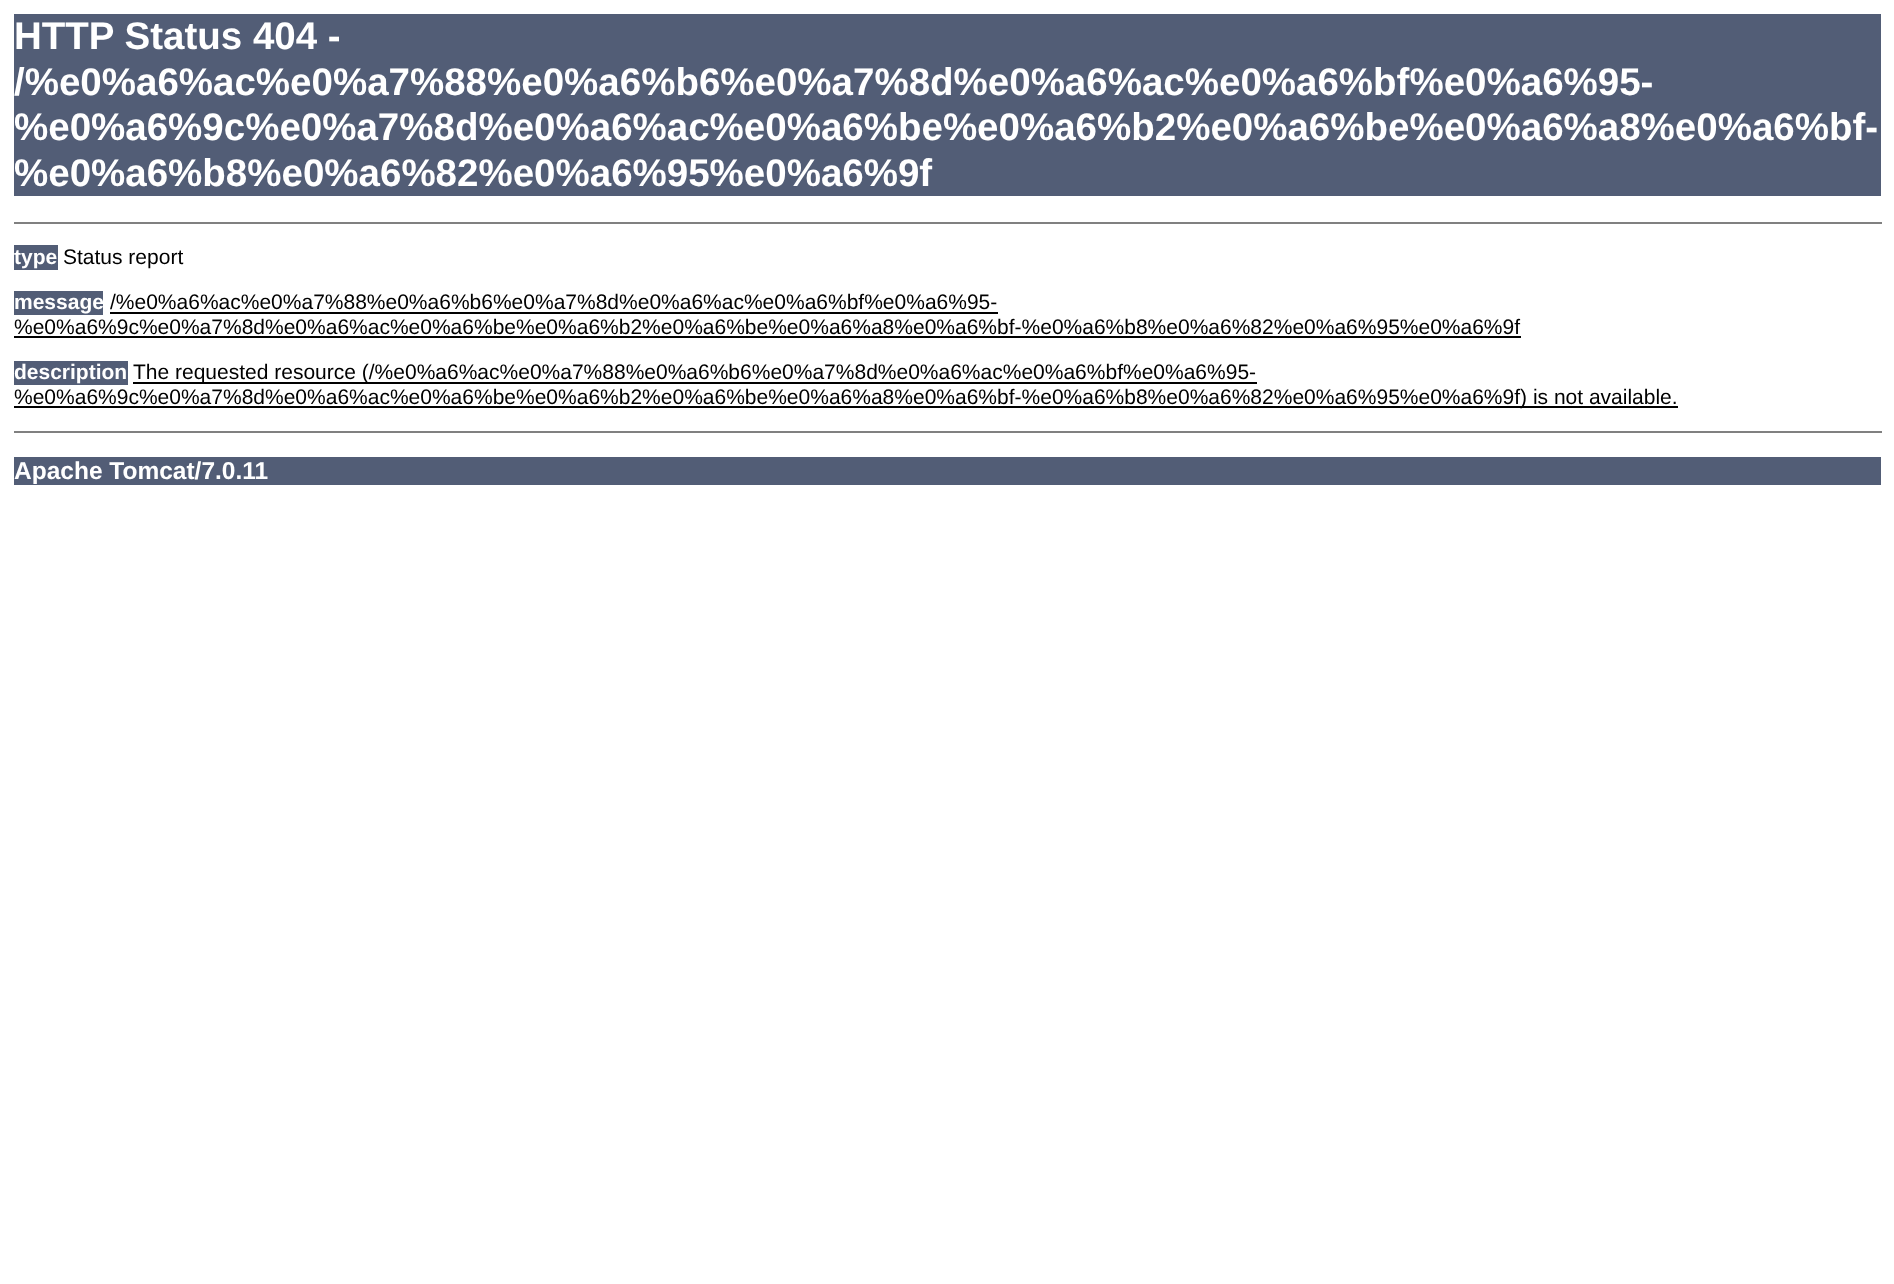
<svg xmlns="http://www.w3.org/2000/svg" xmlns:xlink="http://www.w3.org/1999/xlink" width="1894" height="1284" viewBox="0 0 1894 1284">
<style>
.cls-1{font:bold 38.5px Liberation Sans;fill:#ffffff}
.cls-2{font:bold 21px Liberation Sans;fill:#ffffff}
.cls-3{font:21px Liberation Sans;fill:#000000}
.cls-4{font:bold 24.5px Liberation Sans;fill:#ffffff}
</style>
<rect width="100%" height="100%" fill="#ffffff"/>
<rect fill="#525d76" x="14" y="14" width="1867" height="182"/>
<rect fill="#808080" x="14" y="222" width="1868" height="2"/>
<rect fill="#525d76" x="14" y="245" width="44" height="25"/>
<rect fill="#525d76" x="14" y="291" width="89" height="24"/>
<rect fill="#000000" x="110" y="312" width="888" height="2"/>
<rect fill="#000000" x="14" y="336" width="1507" height="2"/>
<rect fill="#525d76" x="14" y="361" width="114" height="24"/>
<rect fill="#000000" x="133" y="382" width="1124" height="2"/>
<rect fill="#000000" x="14" y="406" width="1664" height="2"/>
<rect fill="#808080" x="14" y="431" width="1868" height="2"/>
<rect fill="#525d76" x="14" y="457" width="1867" height="28"/>
<text class="cls-1"><tspan x="14" y="49">HTTP Status 404 -</tspan><tspan x="14" y="95">/%e0%a6%ac%e0%a7%88%e0%a6%b6%e0%a7%8d%e0%a6%ac%e0%a6%bf%e0%a6%95-</tspan><tspan x="14" y="140">%e0%a6%9c%e0%a7%8d%e0%a6%ac%e0%a6%be%e0%a6%b2%e0%a6%be%e0%a6%a8%e0%a6%bf-</tspan><tspan x="14" y="186">%e0%a6%b8%e0%a6%82%e0%a6%95%e0%a6%9f</tspan></text>
<text class="cls-2" x="14" y="264">type</text>
<text class="cls-3" x="63" y="264">Status report</text>
<text class="cls-2" x="14" y="309">message</text>
<text class="cls-3" x="110" y="309">/%e0%a6%ac%e0%a7%88%e0%a6%b6%e0%a7%8d%e0%a6%ac%e0%a6%bf%e0%a6%95-</text>
<text class="cls-3" x="14" y="334">%e0%a6%9c%e0%a7%8d%e0%a6%ac%e0%a6%be%e0%a6%b2%e0%a6%be%e0%a6%a8%e0%a6%bf-%e0%a6%b8%e0%a6%82%e0%a6%95%e0%a6%9f</text>
<text class="cls-2" x="14" y="379">description</text>
<text class="cls-3" x="133" y="379">The requested resource (/%e0%a6%ac%e0%a7%88%e0%a6%b6%e0%a7%8d%e0%a6%ac%e0%a6%bf%e0%a6%95-</text>
<text class="cls-3" x="14" y="404">%e0%a6%9c%e0%a7%8d%e0%a6%ac%e0%a6%be%e0%a6%b2%e0%a6%be%e0%a6%a8%e0%a6%bf-%e0%a6%b8%e0%a6%82%e0%a6%95%e0%a6%9f) is not available.</text>
<text class="cls-4" x="14" y="479">Apache Tomcat/7.0.11</text>
</svg>
